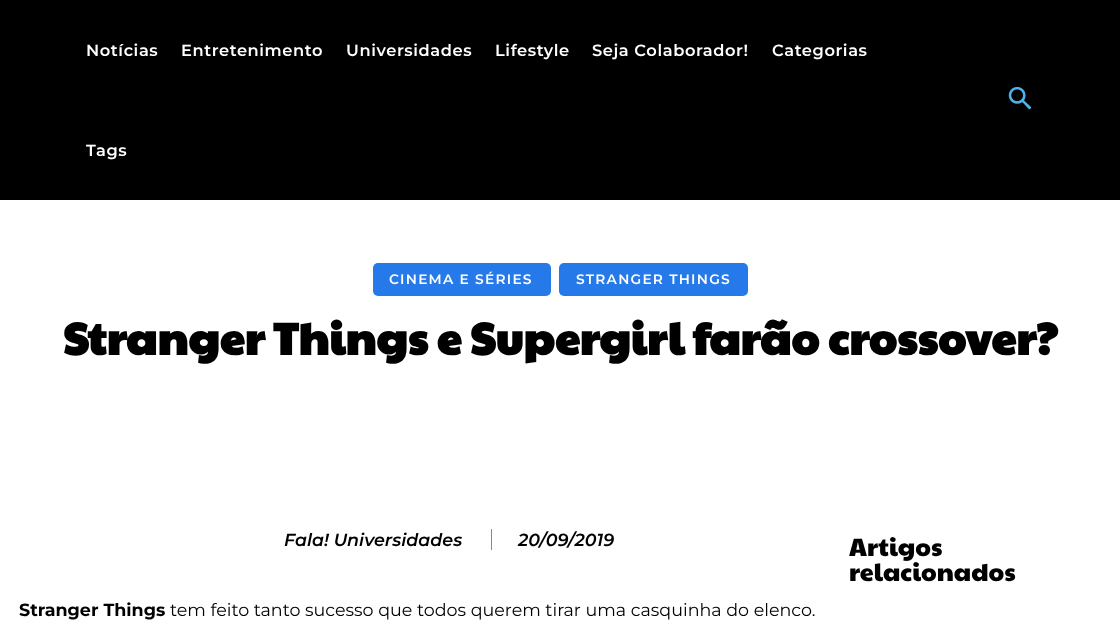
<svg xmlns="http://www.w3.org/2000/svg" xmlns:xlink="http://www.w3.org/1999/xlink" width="1120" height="624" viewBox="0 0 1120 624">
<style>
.cls-1{font:600 16.25px Montserrat;letter-spacing:0.6px;fill:#ffffff}
.cls-2{font:600 13.75px Montserrat;letter-spacing:1.25px;fill:#ffffff}
.cls-3{font:bold 45px Paytone One;fill:#000000}
.cls-4{font:italic 600 17.5px Montserrat;fill:#000000}
.cls-5{font:bold 17.5px Montserrat;fill:#000000}
.cls-6{font:17.5px Montserrat;fill:#000000}
.cls-7{font:25px Paytone One;fill:#000000}
</style>
<rect width="100%" height="100%" fill="#ffffff"/>
<rect fill="#000000" x="0" y="0" width="1120" height="200"/>
<image xlink:href="image0.png" x="1008" y="86" width="23" height="24"/>
<rect fill="#2579e8" x="373" y="263" width="178" height="33" rx="5"/>
<rect fill="#2579e8" x="559" y="263" width="189" height="33" rx="5"/>
<rect fill="#888888" x="491" y="529" width="1" height="21"/>
<text class="cls-1" x="86" y="56">Notícias</text>
<text class="cls-1" x="181" y="56">Entretenimento</text>
<text class="cls-1" x="346" y="56">Universidades</text>
<text class="cls-1" x="495" y="56">Lifestyle</text>
<text class="cls-1" x="592" y="56">Seja Colaborador!</text>
<text class="cls-1" x="772" y="56">Categorias</text>
<text class="cls-1" x="86" y="156">Tags</text>
<text class="cls-2" x="389" y="284">CINEMA E SÉRIES</text>
<text class="cls-2" x="576" y="284">STRANGER THINGS</text>
<text class="cls-3" x="63" y="355">Stranger Things e Supergirl farão crossover?</text>
<text class="cls-4" x="284" y="546">Fala! Universidades</text>
<text class="cls-4" x="518" y="546">20/09/2019</text>
<text class="cls-5" x="19" y="616">Stranger Things</text>
<text class="cls-6" x="170" y="616">tem feito tanto sucesso que todos querem tirar uma casquinha do elenco.</text>
<text class="cls-7"><tspan x="849" y="556">Artigos</tspan><tspan x="849" y="581">relacionados</tspan></text>
</svg>
